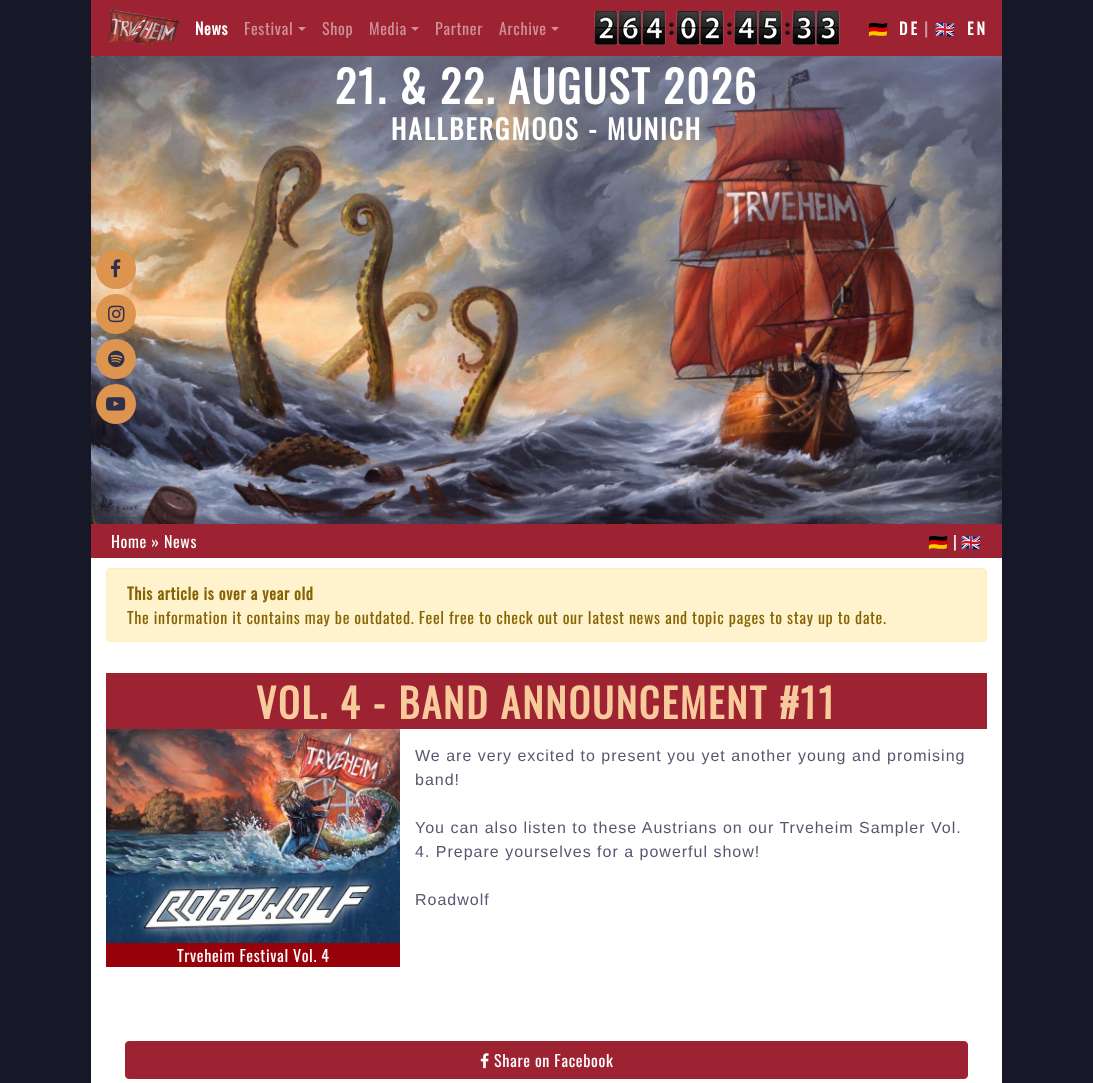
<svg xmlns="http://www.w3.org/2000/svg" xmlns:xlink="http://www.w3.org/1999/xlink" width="1093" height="1083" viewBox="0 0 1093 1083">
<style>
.cls-1{font:bold 16px Oswald;letter-spacing:0.64px;fill:#ffffff}
.cls-2{font:16px Oswald;letter-spacing:0.64px;fill:#ce9199}
.cls-3{font:bold 16px Noto Color Emoji;letter-spacing:3px;fill:#ffffff}
.cls-4{font:bold 16px Oswald;letter-spacing:3px;fill:#ffffff}
.cls-5{font:bold 16px Oswald;letter-spacing:2px;fill:#ce9199}
.cls-6{font:bold 43.75px Oswald;letter-spacing:2px;fill:#ffffff}
.cls-7{font:bold 27.25px Oswald;letter-spacing:2px;fill:#ffffff}
.cls-8{font:16px Oswald;letter-spacing:0.64px;fill:#ffffff}
.cls-9{font:16px Noto Color Emoji;letter-spacing:0.64px;fill:#ffffff}
.cls-10{font:bold 16px Oswald;letter-spacing:0.64px;fill:#856404}
.cls-11{font:16px Oswald;letter-spacing:0.64px;fill:#856404}
.cls-12{font:bold 40px Oswald;letter-spacing:2px;fill:#f7cb9c}
.cls-13{font:16px Liberation Sans;letter-spacing:1px;fill:#56586f}
</style>
<rect width="100%" height="100%" fill="#161828"/>
<rect fill="#ffffff" x="91" y="558" width="911" height="525"/>
<rect fill="#9d2332" x="91" y="0" width="911" height="56"/>
<image xlink:href="image0.png" x="107" y="9" width="74" height="37"/>
<path fill="#ce9199" d="M298 27H306L302 31Z"/>
<path fill="#ce9199" d="M411 27H419L415 31Z"/>
<path fill="#ce9199" d="M551 27H559L555 31Z"/>
<image xlink:href="image1.png" x="594" y="11" width="24" height="34"/>
<image xlink:href="image2.png" x="618" y="11" width="24" height="34"/>
<image xlink:href="image3.png" x="642" y="11" width="24" height="34"/>
<image xlink:href="image4.png" x="669" y="22" width="5" height="13"/>
<image xlink:href="image5.png" x="676" y="11" width="24" height="34"/>
<image xlink:href="image1.png" x="700" y="11" width="24" height="34"/>
<image xlink:href="image4.png" x="727" y="22" width="5" height="13"/>
<image xlink:href="image3.png" x="734" y="11" width="24" height="34"/>
<image xlink:href="image6.png" x="758" y="11" width="24" height="34"/>
<image xlink:href="image4.png" x="785" y="22" width="5" height="13"/>
<image xlink:href="image7.png" x="792" y="11" width="24" height="34"/>
<image xlink:href="image7.png" x="816" y="11" width="24" height="34"/>
<image xlink:href="image8.png" x="91" y="56" width="911" height="468"/>
<circle fill="#dd944f" cx="116" cy="269" r="20"/>
<image xlink:href="image9.png" x="111" y="259" width="10" height="19"/>
<circle fill="#dd944f" cx="116" cy="314" r="20"/>
<image xlink:href="image10.png" x="108" y="305" width="17" height="18"/>
<circle fill="#dd944f" cx="116" cy="359" r="20"/>
<image xlink:href="image11.png" x="108" y="350" width="17" height="18"/>
<circle fill="#dd944f" cx="116" cy="404" r="20"/>
<image xlink:href="image12.png" x="106" y="397" width="20" height="14"/>
<rect fill="#9d2332" x="91" y="524" width="911" height="34"/>
<rect fill="#fff3cd" stroke="#ffeeba" x="106.5" y="568.5" width="880" height="73" rx="3.5"/>
<rect fill="#9d2332" x="106" y="673" width="881" height="56"/>
<image xlink:href="image13.png" x="106" y="729" width="294" height="214"/>
<rect fill="#97010a" x="106" y="943" width="294" height="24"/>
<rect fill="#9d2332" stroke="#9d2332" x="125.5" y="1041.5" width="842" height="37" rx="3.5"/>
<image xlink:href="image14.png" x="480" y="1053" width="9" height="16"/>
<text class="cls-1" x="195" y="35">News</text>
<text class="cls-2" x="244" y="35">Festival</text>
<text class="cls-2" x="322" y="35">Shop</text>
<text class="cls-2" x="369" y="35">Media</text>
<text class="cls-2" x="435" y="35">Partner</text>
<text class="cls-2" x="499" y="35">Archive</text>
<text class="cls-3" x="868" y="35">🇩🇪</text>
<text class="cls-4" x="899" y="35">DE</text>
<text class="cls-5" x="924" y="35">|</text>
<text class="cls-3" x="935" y="35">🇬🇧</text>
<text class="cls-4" x="967" y="35">EN</text>
<text class="cls-6" x="335" y="104">21. &amp; 22. AUGUST 2026</text>
<text class="cls-7" x="391" y="140">HALLBERGMOOS - MUNICH</text>
<text class="cls-8" x="111" y="548">Home » News</text>
<text class="cls-9" x="928" y="548">🇩🇪</text>
<text class="cls-8" x="953" y="548">|</text>
<text class="cls-9" x="961" y="548">🇬🇧</text>
<text class="cls-10" x="127" y="600">This article is over a year old</text>
<text class="cls-11" x="127" y="624">The information it contains may be outdated. Feel free to check out our latest news and topic pages to stay up to date.</text>
<text class="cls-12" x="256" y="719">VOL. 4 - BAND ANNOUNCEMENT #11</text>
<text class="cls-13"><tspan x="415" y="761">We are very excited to present you yet another young and promising</tspan><tspan x="415" y="785">band!</tspan></text>
<text class="cls-13"><tspan x="415" y="833">You can also listen to these Austrians on our Trveheim Sampler Vol.</tspan><tspan x="415" y="857">4. Prepare yourselves for a powerful show!</tspan></text>
<text class="cls-13" x="415" y="905">Roadwolf</text>
<text class="cls-8" x="177" y="962">Trveheim Festival Vol. 4</text>
<text class="cls-8" x="494" y="1067">Share on Facebook</text>
</svg>
